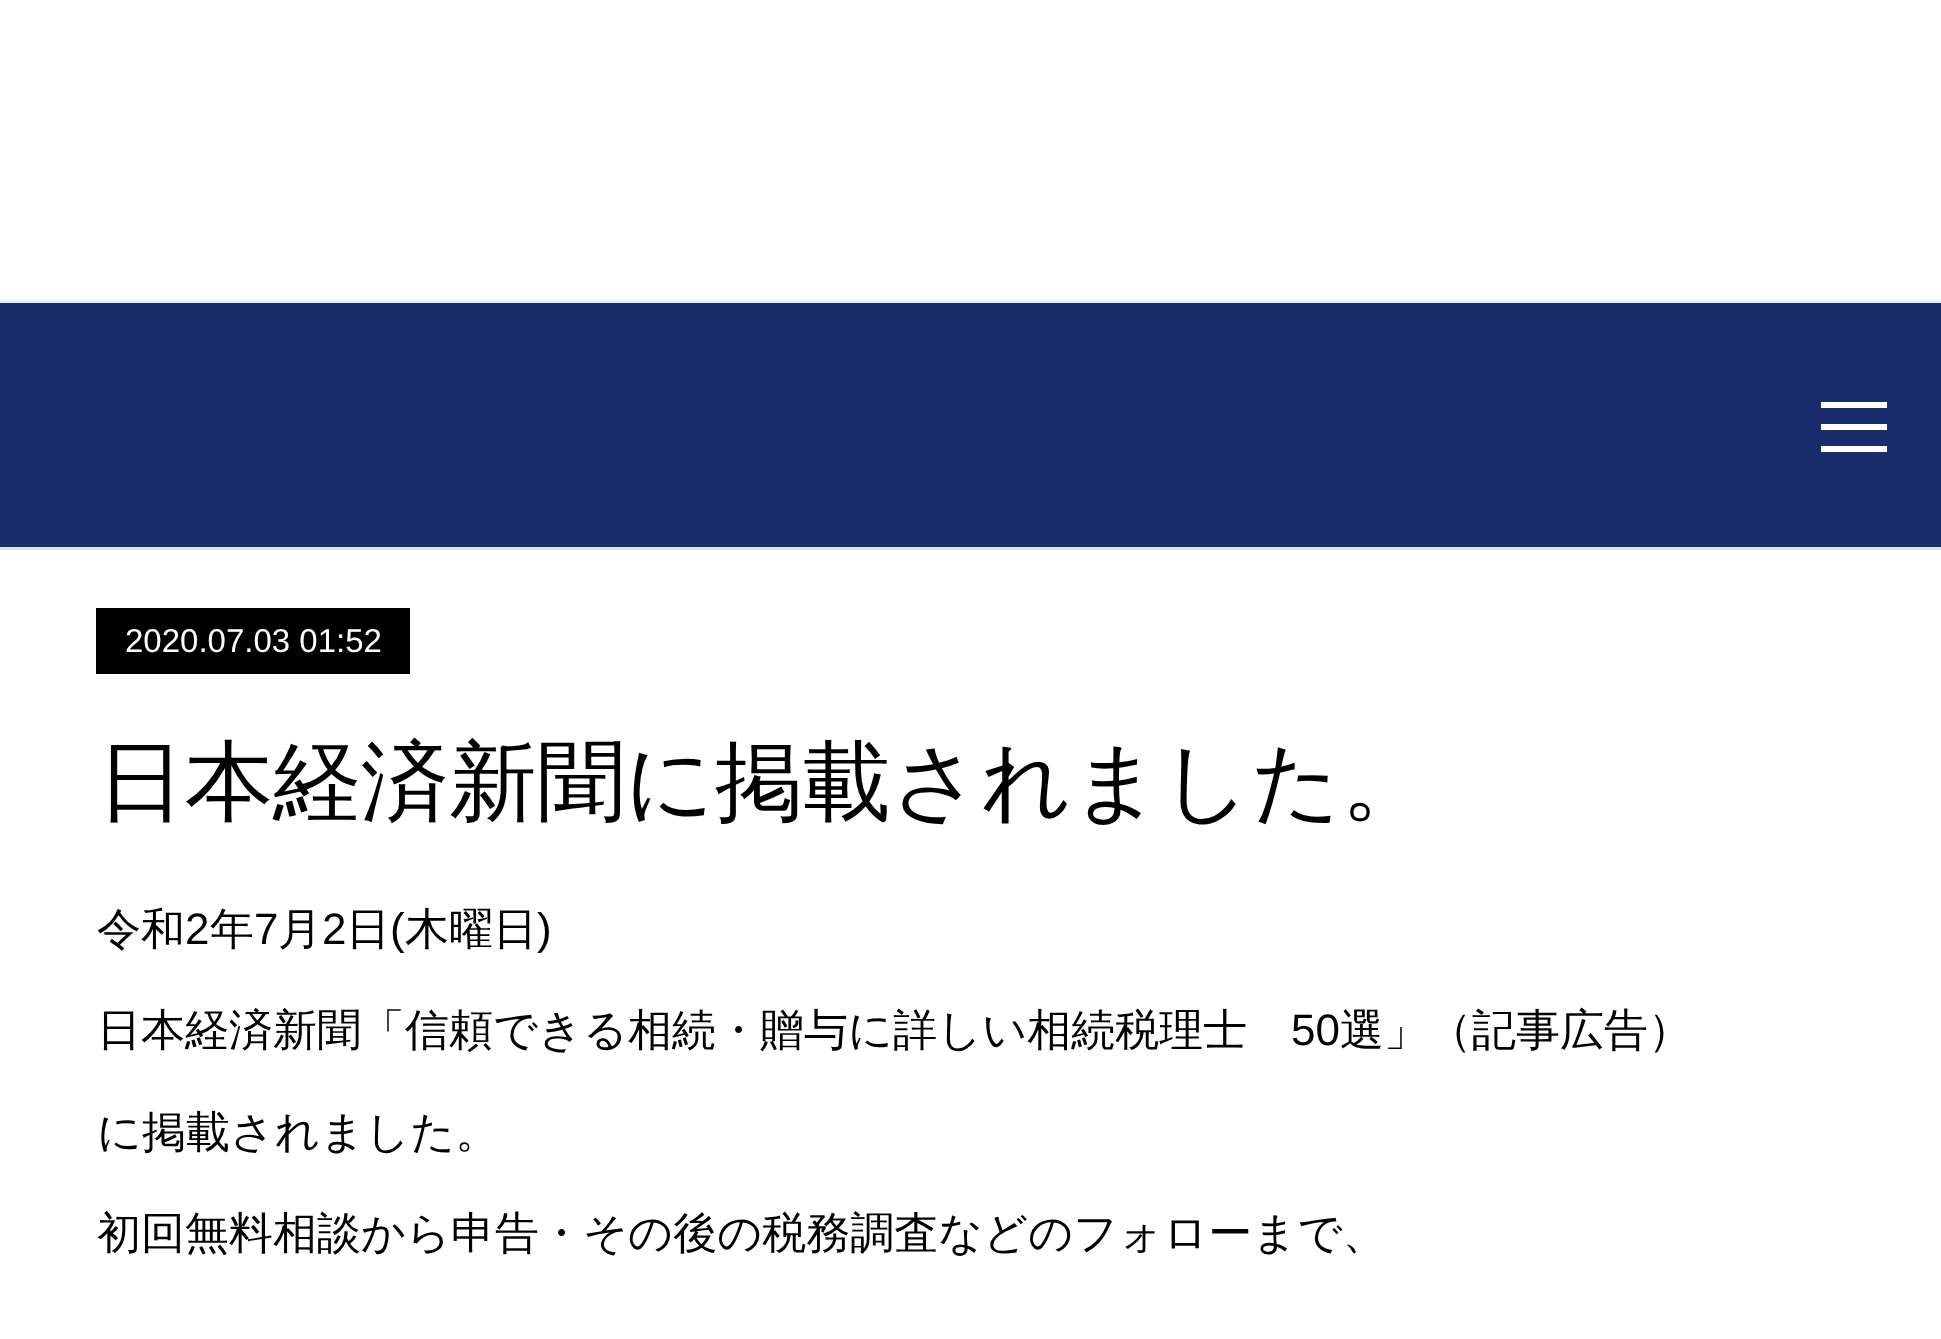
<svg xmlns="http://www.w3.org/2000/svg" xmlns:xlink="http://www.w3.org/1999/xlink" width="1941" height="1339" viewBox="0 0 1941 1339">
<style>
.cls-1{font:33px Liberation Sans;fill:#ffffff}
.cls-2{font:500 88px WenQuanYi Zen Hei;fill:#000000}
.cls-3{font:500 44px WenQuanYi Zen Hei;fill:#000000}
.cls-4{font:44px Liberation Sans;fill:#000000}
</style>
<rect width="100%" height="100%" fill="#ffffff"/>
<rect fill="#eeeeee" x="0" y="300" width="1941" height="3"/>
<rect fill="#192d6b" x="0" y="303" width="1941" height="244"/>
<rect fill="#dddddd" x="0" y="547" width="1941" height="3"/>
<rect fill="#ffffff" x="1821" y="402" width="66" height="6"/>
<rect fill="#ffffff" x="1821" y="424" width="66" height="6"/>
<rect fill="#ffffff" x="1821" y="446" width="66" height="6"/>
<rect fill="#000000" x="96" y="608" width="314" height="66"/>
<text class="cls-1" x="125" y="652">2020.07.03 01:52</text>
<text class="cls-2" x="97" y="812">日本経済新聞に掲載されました。</text>
<text class="cls-3" x="97" y="944">令和</text>
<text class="cls-4" x="185" y="944">2</text>
<text class="cls-3" x="210" y="944">年</text>
<text class="cls-4" x="254" y="944">7</text>
<text class="cls-3" x="278" y="944">月</text>
<text class="cls-4" x="322" y="944">2</text>
<text class="cls-3" x="346" y="944">日</text>
<text class="cls-4" x="390" y="944">(</text>
<text class="cls-3" x="405" y="944">木曜日</text>
<text class="cls-4" x="537" y="944">)</text>
<text class="cls-3" x="97" y="1045">日本経済新聞「信頼できる相続・贈与に詳しい相続税理士</text>
<text class="cls-4" x="1291" y="1045">50</text>
<text class="cls-3" x="1340" y="1045">選」（記事広告）</text>
<text class="cls-3" x="97" y="1147">に掲載されました。</text>
<text class="cls-3" x="97" y="1248">初回無料相談から申告・その後の税務調査などのフォローまで、</text>
</svg>
